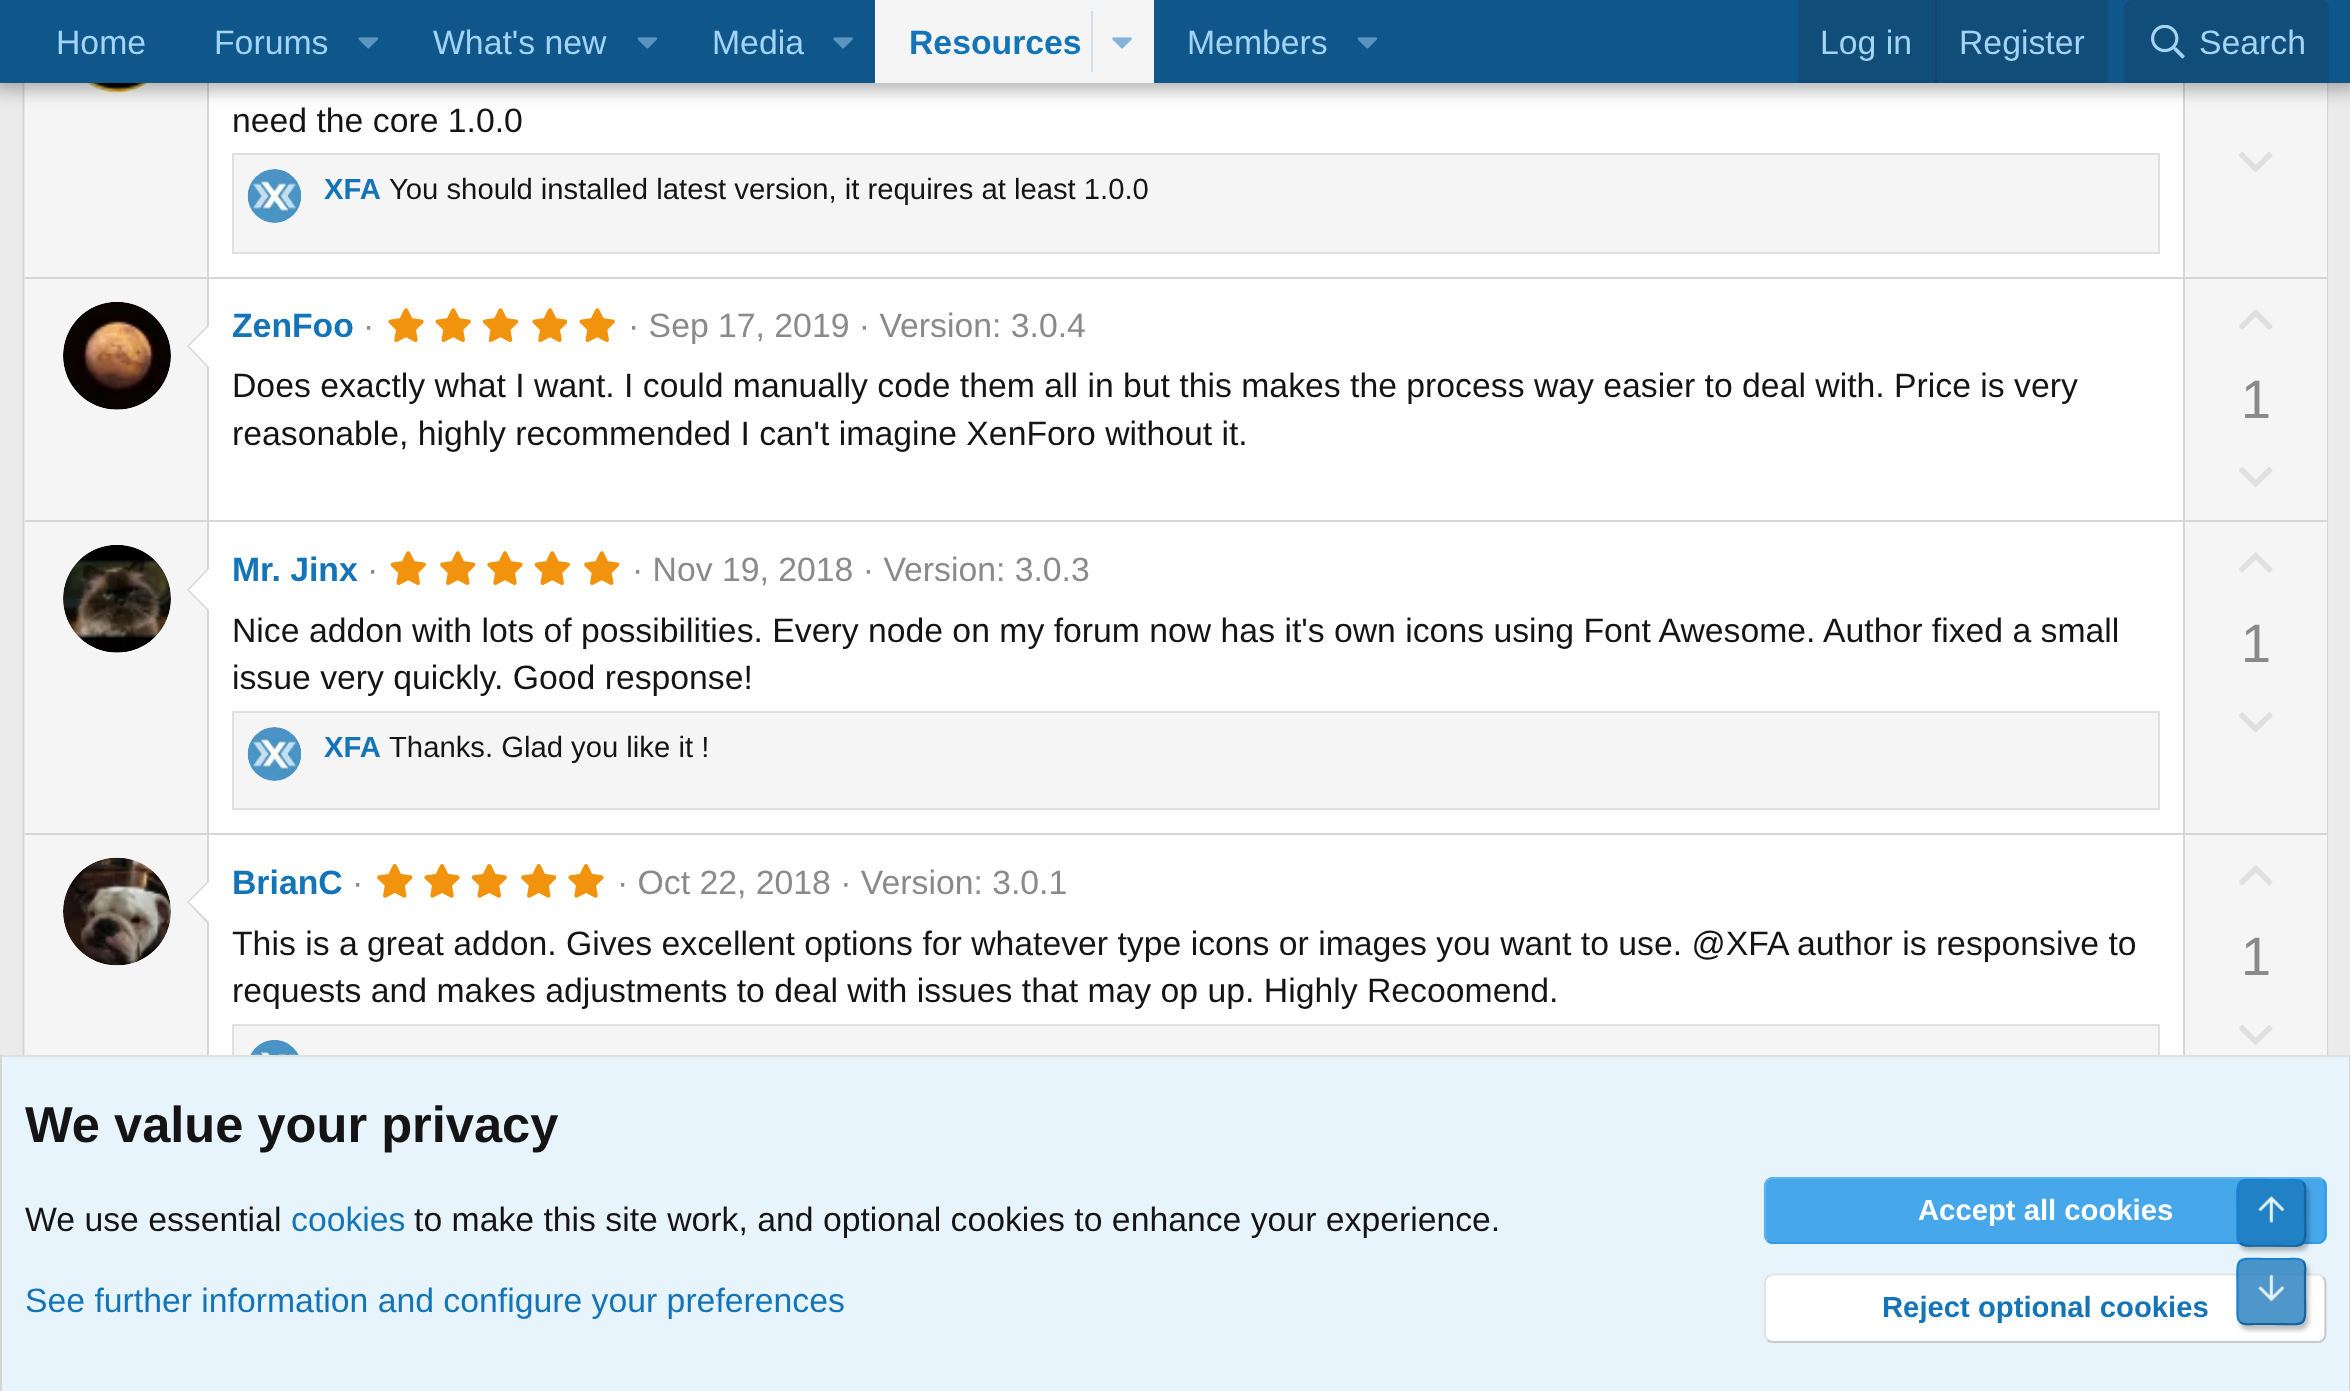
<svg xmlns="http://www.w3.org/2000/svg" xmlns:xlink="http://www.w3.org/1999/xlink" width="2350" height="1391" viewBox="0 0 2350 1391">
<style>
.cls-1{font:33.75px Liberation Sans;fill:#a3d4f5}
.cls-2{font:bold 33.75px Liberation Sans;fill:#1474b8}
.cls-3{font:33.75px Liberation Sans;fill:#141414}
.cls-4{font:bold 29.25px Liberation Sans;fill:#1474b8}
.cls-5{font:29.25px Liberation Sans;fill:#141414}
.cls-6{font:33.75px Liberation Sans;fill:#8a8a8a}
.cls-7{font:54px Liberation Sans;fill:#8a8a8a}
.cls-8{font:bold 50.6px Liberation Sans;fill:#141414}
.cls-9{font:33.75px Liberation Sans;fill:#1474b8}
.cls-10{font:bold 29.25px Liberation Sans;fill:#ffffff}
</style>
<defs>
<clipPath id="clip1"><path d="M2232 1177H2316V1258H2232ZM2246 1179H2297C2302 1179 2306 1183 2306 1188V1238C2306 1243 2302 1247 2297 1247H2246C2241 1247 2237 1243 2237 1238V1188C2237 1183 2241 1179 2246 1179Z" clip-rule="evenodd"/></clipPath>
<clipPath id="clip2"><path d="M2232 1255H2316V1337H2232ZM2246 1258H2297C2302 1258 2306 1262 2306 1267V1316C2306 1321 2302 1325 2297 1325H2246C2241 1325 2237 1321 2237 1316V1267C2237 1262 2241 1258 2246 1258Z" clip-rule="evenodd"/></clipPath>
</defs>
<rect width="100%" height="100%" fill="#ebebeb"/>
<rect fill="#ffffff" x="24" y="83" width="2305" height="972"/>
<path fill="none" stroke="#d6d6d6" stroke-width="2.2" d="M2325.5-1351C2327-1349.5 2327.5-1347.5 2327.5-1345.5V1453.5C2327.5 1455.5 2327 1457.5 2325.5 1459"/>
<path fill="none" stroke="#d6d6d6" stroke-width="2.2" d="M26 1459C24.5 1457.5 23.5 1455.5 23.5 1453.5V-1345.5C23.5-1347.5 24.5-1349.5 26-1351"/>
<rect fill="#f5f5f5" x="25" y="83" width="182" height="194"/>
<rect fill="#d6d6d6" x="207" y="83" width="2" height="194"/>
<image xlink:href="image4.png" x="87" y="83" width="60" height="10"/>
<rect fill="#f5f5f5" x="2185" y="83" width="142" height="194"/>
<rect fill="#d6d6d6" x="2183" y="83" width="2" height="194"/>
<rect fill="#000000" fill-opacity="0.3" filter="blur(9px)" x="-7" y="-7" width="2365" height="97"/>
<rect fill="#0f578a" x="0" y="0" width="2350" height="83"/>
<image xlink:href="image0.png" x="358" y="37" width="20" height="12"/>
<image xlink:href="image0.png" x="637" y="37" width="20" height="12"/>
<image xlink:href="image1.png" x="833" y="37" width="20" height="12"/>
<rect fill="#f5f5f5" x="875" y="0" width="279" height="83"/>
<rect fill="#cedfeb" x="1091" y="11" width="2" height="61"/>
<image xlink:href="image2.png" x="1112" y="37" width="20" height="12"/>
<image xlink:href="image0.png" x="1357" y="37" width="20" height="12"/>
<rect fill="#104d78" x="1798" y="0" width="310" height="83"/>
<rect fill="#114469" x="1935" y="0" width="2" height="83"/>
<path fill="#104d78" d="M2133 0H2320C2325 0 2329 4 2329 9V83H2124V9C2124 4 2128 0 2133 0Z"/>
<image xlink:href="image3.png" x="2151" y="25" width="34" height="34"/>
<rect fill="#f5f5f5" stroke="#e0e0e0" stroke-width="2" x="233" y="154" width="1926" height="99"/>
<circle fill="#ffffff" cx="275" cy="196" r="27"/>
<image xlink:href="image5.png" x="247" y="169" width="55" height="54"/>
<image xlink:href="image6.png" x="2239" y="152" width="34" height="20"/>
<rect fill="#d6d6d6" x="25" y="277" width="2302" height="2"/>
<rect fill="#f5f5f5" x="25" y="279" width="182" height="241"/>
<rect fill="#d6d6d6" x="207" y="279" width="2" height="241"/>
<circle fill="#ffffff" cx="117" cy="356" r="54"/>
<image xlink:href="image7.png" x="63" y="302" width="108" height="108"/>
<path fill="#d6d6d6" d="M209 324V369L187 346Z"/>
<path fill="#ffffff" d="M209 326V367L189 346Z"/>
<image xlink:href="image8.png" x="388" y="308" width="36" height="34"/>
<image xlink:href="image9.png" x="435" y="308" width="36" height="34"/>
<image xlink:href="image10.png" x="482" y="308" width="37" height="34"/>
<image xlink:href="image11.png" x="532" y="308" width="35" height="34"/>
<image xlink:href="image9.png" x="579" y="308" width="36" height="34"/>
<rect fill="#f5f5f5" x="2185" y="279" width="142" height="241"/>
<rect fill="#d6d6d6" x="2183" y="279" width="2" height="241"/>
<image xlink:href="image12.png" x="2239" y="309" width="34" height="21"/>
<image xlink:href="image6.png" x="2239" y="467" width="34" height="20"/>
<rect fill="#d6d6d6" x="25" y="520" width="2302" height="2"/>
<rect fill="#f5f5f5" x="25" y="522" width="182" height="311"/>
<rect fill="#d6d6d6" x="207" y="522" width="2" height="311"/>
<circle fill="#ffffff" cx="117" cy="599" r="54"/>
<image xlink:href="image13.png" x="63" y="545" width="108" height="108"/>
<path fill="#d6d6d6" d="M209 567V612L187 590Z"/>
<path fill="#ffffff" d="M209 569V610L189 590Z"/>
<image xlink:href="image9.png" x="390" y="551" width="36" height="34"/>
<image xlink:href="image14.png" x="440" y="551" width="36" height="34"/>
<image xlink:href="image8.png" x="487" y="551" width="36" height="34"/>
<image xlink:href="image9.png" x="534" y="551" width="36" height="34"/>
<image xlink:href="image15.png" x="584" y="551" width="35" height="34"/>
<rect fill="#f5f5f5" stroke="#e0e0e0" stroke-width="2" x="233" y="712" width="1926" height="97"/>
<circle fill="#ffffff" cx="275" cy="754" r="27"/>
<image xlink:href="image16.png" x="247" y="727" width="55" height="54"/>
<rect fill="#f5f5f5" x="2185" y="522" width="142" height="311"/>
<rect fill="#d6d6d6" x="2183" y="522" width="2" height="311"/>
<image xlink:href="image12.png" x="2239" y="552" width="34" height="21"/>
<image xlink:href="image17.png" x="2239" y="712" width="34" height="21"/>
<rect fill="#d6d6d6" x="25" y="833" width="2302" height="2"/>
<rect fill="#f5f5f5" x="25" y="835" width="182" height="220"/>
<rect fill="#d6d6d6" x="207" y="835" width="2" height="220"/>
<circle fill="#ffffff" cx="117" cy="911" r="54"/>
<image xlink:href="image18.png" x="63" y="857" width="108" height="109"/>
<path fill="#d6d6d6" d="M209 880V925L187 902Z"/>
<path fill="#ffffff" d="M209 882V922L189 902Z"/>
<image xlink:href="image19.png" x="377" y="864" width="36" height="34"/>
<image xlink:href="image20.png" x="424" y="864" width="36" height="34"/>
<image xlink:href="image21.png" x="471" y="864" width="36" height="34"/>
<image xlink:href="image22.png" x="521" y="864" width="35" height="34"/>
<image xlink:href="image20.png" x="568" y="864" width="36" height="34"/>
<rect fill="#f5f5f5" x="234" y="1026" width="1924" height="29"/>
<rect fill="none" stroke="#e0e0e0" stroke-width="2" x="233" y="1025" width="1926" height="99"/>
<circle fill="#ffffff" cx="275" cy="1067" r="27"/>
<image xlink:href="image23.png" x="250" y="1040" width="49" height="15"/>
<rect fill="#f5f5f5" x="2185" y="835" width="142" height="220"/>
<rect fill="#d6d6d6" x="2183" y="835" width="2" height="220"/>
<image xlink:href="image24.png" x="2239" y="865" width="34" height="21"/>
<image xlink:href="image6.png" x="2239" y="1025" width="34" height="20"/>
<rect fill="#e8f4fc" x="2" y="1057" width="2347" height="334"/>
<rect fill="#e0e0e0" x="0" y="1055" width="2350" height="2"/>
<rect fill="#d6d6d6" x="2349" y="1055" width="1" height="336"/>
<rect fill="#d6d6d6" x="0" y="1055" width="2" height="336"/>
<rect fill="#47a7eb" x="1764" y="1177" width="563" height="67" rx="9"/>
<path fill="none" stroke="#309ce8" stroke-width="2.2" d="M2323 1180C2324.5 1181.5 2325.5 1183.5 2325.5 1186V1235C2325.5 1237.5 2324.5 1239.5 2323 1241C2321.5 1242.5 2319.5 1243 2317.5 1243H1773C1771 1243 1769 1242.5 1767.5 1241"/>
<path fill="none" stroke="#5eb2ed" stroke-width="2.2" d="M1767.5 1241C1766 1239.5 1765 1237.5 1765 1235V1186C1765 1183.5 1766 1181.5 1767.5 1180C1769 1178.5 1771 1178 1773 1178H2317.5C2319.5 1178 2321.5 1178.5 2323 1180"/>
<rect fill="#ffffff" x="1764" y="1274" width="563" height="69" rx="9"/>
<path fill="none" stroke="#c9c9c9" stroke-width="2.2" d="M2323 1277C2324.5 1278.5 2325.5 1280.5 2325.5 1282.5V1334C2325.5 1336.5 2324.5 1338.5 2323 1340C2321.5 1341.5 2319.5 1342 2317.5 1342H1773C1771 1342 1769 1341.5 1767.5 1340"/>
<path fill="none" stroke="#e3e3e3" stroke-width="2.2" d="M1767.5 1340C1766 1338.5 1765 1336.5 1765 1334V1282.5C1765 1280.5 1766 1278.5 1767.5 1277C1769 1275.5 1771 1274.5 1773 1274.5H2317.5C2319.5 1274.5 2321.5 1275.5 2323 1277"/>
<g clip-path="url(#clip1)">
<rect fill="#000000" fill-opacity="0.25" filter="blur(2px)" x="2239" y="1184" width="70" height="67" rx="9"/>
</g>
<rect fill="#1474b8" fill-opacity="0.75" x="2237" y="1179" width="69" height="68" rx="9"/>
<path fill="none" stroke="#1265a1" stroke-width="2.2" d="M2303 1182.5C2306.5 1186 2305 1192 2305 1196V1213C2305 1251 2310 1245.5 2271.5 1245.5H2254C2250 1245.5 2243.5 1246.5 2240 1243"/>
<path fill="none" stroke="#1782cf" stroke-width="2.2" d="M2240 1243C2236.5 1239.5 2237.5 1233.5 2237.5 1229V1213C2237.5 1174.5 2233 1180 2271.5 1180H2288.5C2293 1180 2299 1179 2303 1182.5"/>
<image xlink:href="image25.png" x="2258" y="1195" width="27" height="28"/>
<g clip-path="url(#clip2)">
<rect fill="#000000" fill-opacity="0.25" filter="blur(2px)" x="2239" y="1262" width="70" height="68" rx="9"/>
</g>
<rect fill="#1474b8" fill-opacity="0.75" x="2237" y="1258" width="69" height="67" rx="9"/>
<path fill="none" stroke="#1265a1" stroke-width="2.2" d="M2303 1261C2306.5 1264.5 2305 1270.5 2305 1275V1291.5C2305 1329.5 2310 1324 2271.5 1324H2254C2250 1324 2243.5 1325.5 2240 1322"/>
<path fill="none" stroke="#1782cf" stroke-width="2.2" d="M2240 1322C2236.5 1318.5 2237.5 1312.5 2237.5 1308V1291.5C2237.5 1253.5 2233 1259 2271.5 1259H2288.5C2293 1259 2299 1257.5 2303 1261"/>
<image xlink:href="image26.png" x="2258" y="1274" width="27" height="28"/>
<text class="cls-1" x="56" y="54">Home</text>
<text class="cls-1" x="214" y="54">Forums</text>
<text class="cls-1" x="433" y="54">What's new</text>
<text class="cls-1" x="712" y="54">Media</text>
<text class="cls-2" x="909" y="54">Resources</text>
<text class="cls-1" x="1187" y="54">Members</text>
<text class="cls-1" x="1820" y="54">Log in</text>
<text class="cls-1" x="1959" y="54">Register</text>
<text class="cls-1" x="2199" y="54">Search</text>
<text class="cls-3" x="232" y="132">need the core 1.0.0</text>
<text class="cls-4" x="324" y="199">XFA</text>
<text class="cls-5" x="389" y="199">You should installed latest version, it requires at least 1.0.0</text>
<text class="cls-2" x="232" y="337">ZenFoo</text>
<text class="cls-6" x="363" y="337">·</text>
<text class="cls-6" x="628" y="337">· Sep 17, 2019 · Version: 3.0.4</text>
<text class="cls-3"><tspan x="232" y="397">Does exactly what I want. I could manually code them all in but this makes the process way easier to deal with. Price is very</tspan><tspan x="232" y="445">reasonable, highly recommended I can't imagine XenForo without it.</tspan></text>
<text class="cls-7" x="2241" y="418">1</text>
<text class="cls-2" x="232" y="581">Mr. Jinx</text>
<text class="cls-6" x="367" y="581">·</text>
<text class="cls-6" x="632" y="581">· Nov 19, 2018 · Version: 3.0.3</text>
<text class="cls-3"><tspan x="232" y="642">Nice addon with lots of possibilities. Every node on my forum now has it's own icons using Font Awesome. Author fixed a small</tspan><tspan x="232" y="689">issue very quickly. Good response!</tspan></text>
<text class="cls-4" x="324" y="757">XFA</text>
<text class="cls-5" x="389" y="757">Thanks. Glad you like it !</text>
<text class="cls-7" x="2241" y="662">1</text>
<text class="cls-2" x="232" y="894">BrianC</text>
<text class="cls-6" x="352" y="894">·</text>
<text class="cls-6" x="617" y="894">· Oct 22, 2018 · Version: 3.0.1</text>
<text class="cls-3"><tspan x="232" y="955">This is a great addon. Gives excellent options for whatever type icons or images you want to use. @XFA author is responsive to</tspan><tspan x="232" y="1002">requests and makes adjustments to deal with issues that may op up. Highly Recoomend.</tspan></text>
<text class="cls-7" x="2241" y="975">1</text>
<text class="cls-8" x="25" y="1142">We value your privacy</text>
<text class="cls-3" x="25" y="1231">We use essential</text>
<text class="cls-9" x="291" y="1231">cookies</text>
<text class="cls-3" x="414" y="1231">to make this site work, and optional cookies to enhance your experience.</text>
<text class="cls-9" x="25" y="1312">See further information and configure your preferences</text>
<text class="cls-10" x="1918" y="1220">Accept all cookies</text>
<text class="cls-4" x="1882" y="1317">Reject optional cookies</text>
</svg>
